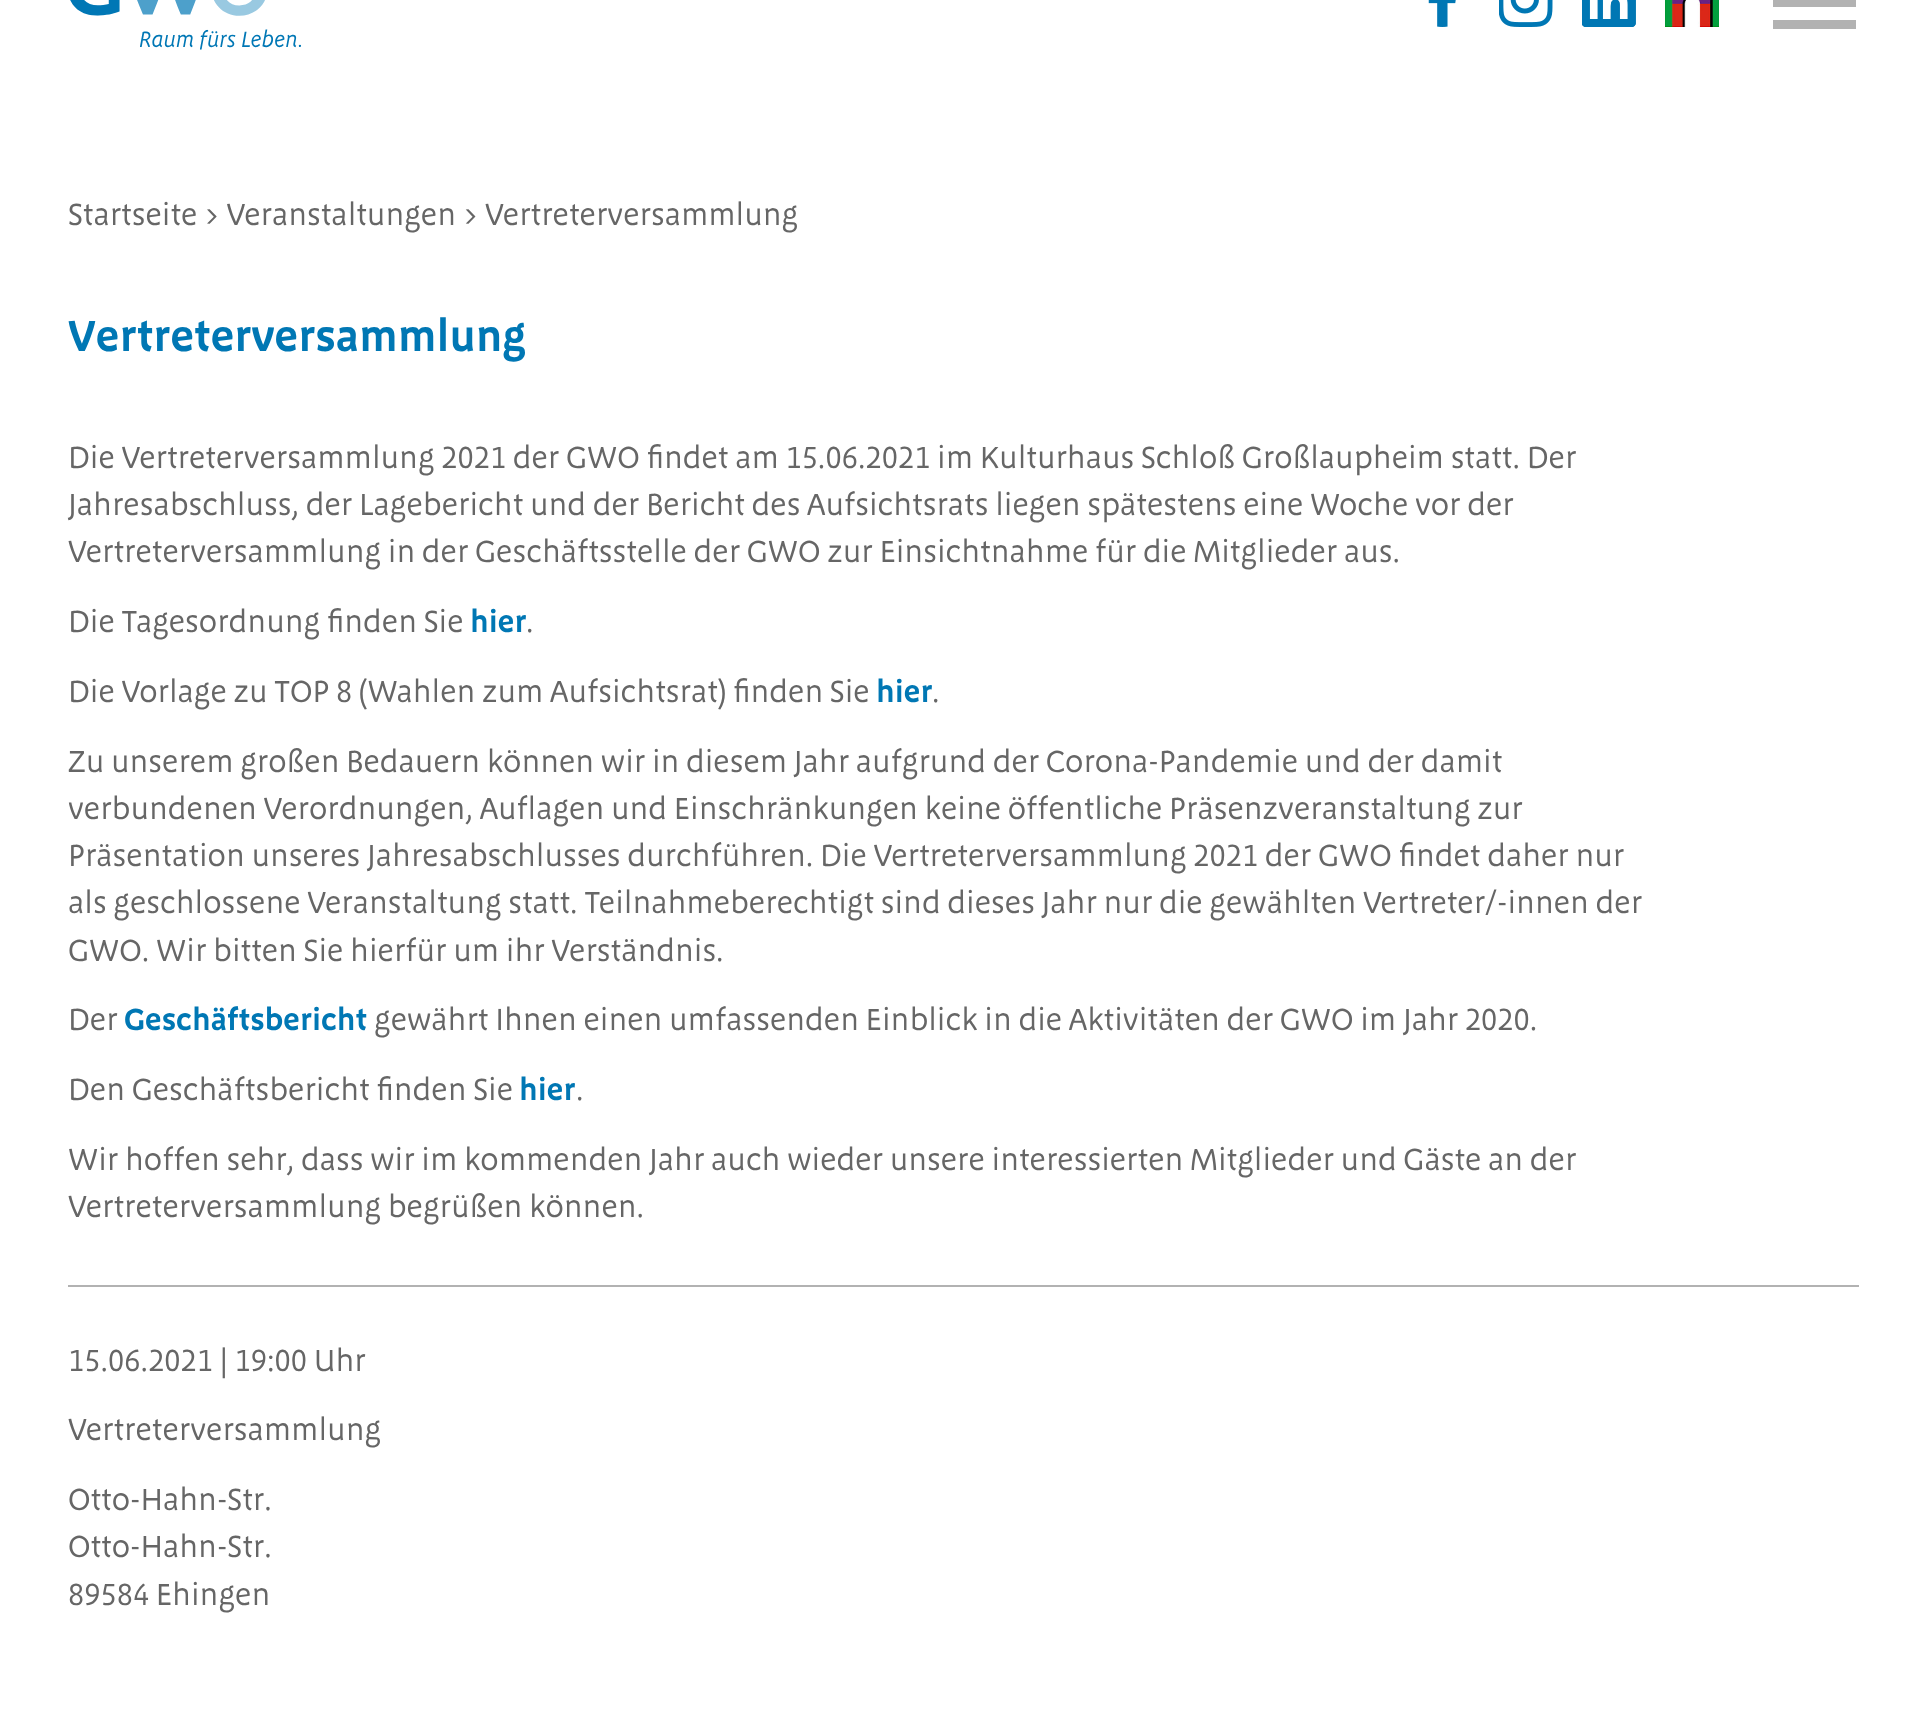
<svg xmlns="http://www.w3.org/2000/svg" xmlns:xlink="http://www.w3.org/1999/xlink" width="1925" height="1713" viewBox="0 0 1925 1713">
<style>
.cls-1{font:31.5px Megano;fill:#666666}
.cls-2{font:45px 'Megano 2';fill:#0077b4}
.cls-3{font:31.5px 'Megano 2';fill:#0077b4}
</style>
<rect width="100%" height="100%" fill="#ffffff"/>
<image xlink:href="image0.png" x="70" y="0" width="231" height="50"/>
<image xlink:href="image1.png" x="1428" y="0" width="28" height="27"/>
<image xlink:href="image2.png" x="1499" y="0" width="54" height="27"/>
<image xlink:href="image3.png" x="1582" y="0" width="54" height="27"/>
<image xlink:href="image4.png" x="1665" y="0" width="54" height="27"/>
<rect fill="#b2b2b2" x="1773" y="0" width="83" height="7"/>
<rect fill="#b2b2b2" x="1773" y="20" width="83" height="9"/>
<rect fill="#b2b2b2" x="68" y="1285" width="1791" height="2"/>
<text class="cls-1" x="68" y="225">Startseite &gt; Veranstaltungen &gt; Vertreterversammlung</text>
<text class="cls-2" x="68" y="351">Vertreterversammlung</text>
<text class="cls-1"><tspan x="68" y="468">Die Vertreterversammlung 2021 der GWO findet am 15.06.2021 im Kulturhaus Schloß Großlaupheim statt. Der</tspan><tspan x="68" y="515">Jahresabschluss, der Lagebericht und der Bericht des Aufsichtsrats liegen spätestens eine Woche vor der</tspan><tspan x="68" y="562">Vertreterversammlung in der Geschäftsstelle der GWO zur Einsichtnahme für die Mitglieder aus.</tspan></text>
<text class="cls-1" x="68" y="632">Die Tagesordnung finden Sie</text>
<text class="cls-3" x="470" y="632">hier</text>
<text class="cls-1" x="526" y="632">.</text>
<text class="cls-1" x="68" y="702">Die Vorlage zu TOP 8 (Wahlen zum Aufsichtsrat) finden Sie</text>
<text class="cls-3" x="876" y="702">hier</text>
<text class="cls-1" x="932" y="702">.</text>
<text class="cls-1"><tspan x="68" y="772">Zu unserem großen Bedauern können wir in diesem Jahr aufgrund der Corona-Pandemie und der damit</tspan><tspan x="68" y="819">verbundenen Verordnungen, Auflagen und Einschränkungen keine öffentliche Präsenzveranstaltung zur</tspan><tspan x="68" y="866">Präsentation unseres Jahresabschlusses durchführen. Die Vertreterversammlung 2021 der GWO findet daher nur</tspan><tspan x="68" y="913">als geschlossene Veranstaltung statt. Teilnahmeberechtigt sind dieses Jahr nur die gewählten Vertreter/-innen der</tspan><tspan x="68" y="961">GWO. Wir bitten Sie hierfür um ihr Verständnis.</tspan></text>
<text class="cls-1" x="68" y="1030">Der</text>
<text class="cls-3" x="124" y="1030">Geschäftsbericht</text>
<text class="cls-1" x="374" y="1030">gewährt Ihnen einen umfassenden Einblick in die Aktivitäten der GWO im Jahr 2020.</text>
<text class="cls-1" x="68" y="1100">Den Geschäftsbericht finden Sie</text>
<text class="cls-3" x="519" y="1100">hier</text>
<text class="cls-1" x="576" y="1100">.</text>
<text class="cls-1"><tspan x="68" y="1170">Wir hoffen sehr, dass wir im kommenden Jahr auch wieder unsere interessierten Mitglieder und Gäste an der</tspan><tspan x="68" y="1217">Vertreterversammlung begrüßen können.</tspan></text>
<text class="cls-1" x="68" y="1371">15.06.2021 | 19:00 Uhr</text>
<text class="cls-1" x="68" y="1440">Vertreterversammlung</text>
<text class="cls-1"><tspan x="68" y="1510">Otto-Hahn-Str.</tspan><tspan x="68" y="1557">Otto-Hahn-Str.</tspan><tspan x="68" y="1605">89584 Ehingen</tspan></text>
</svg>
